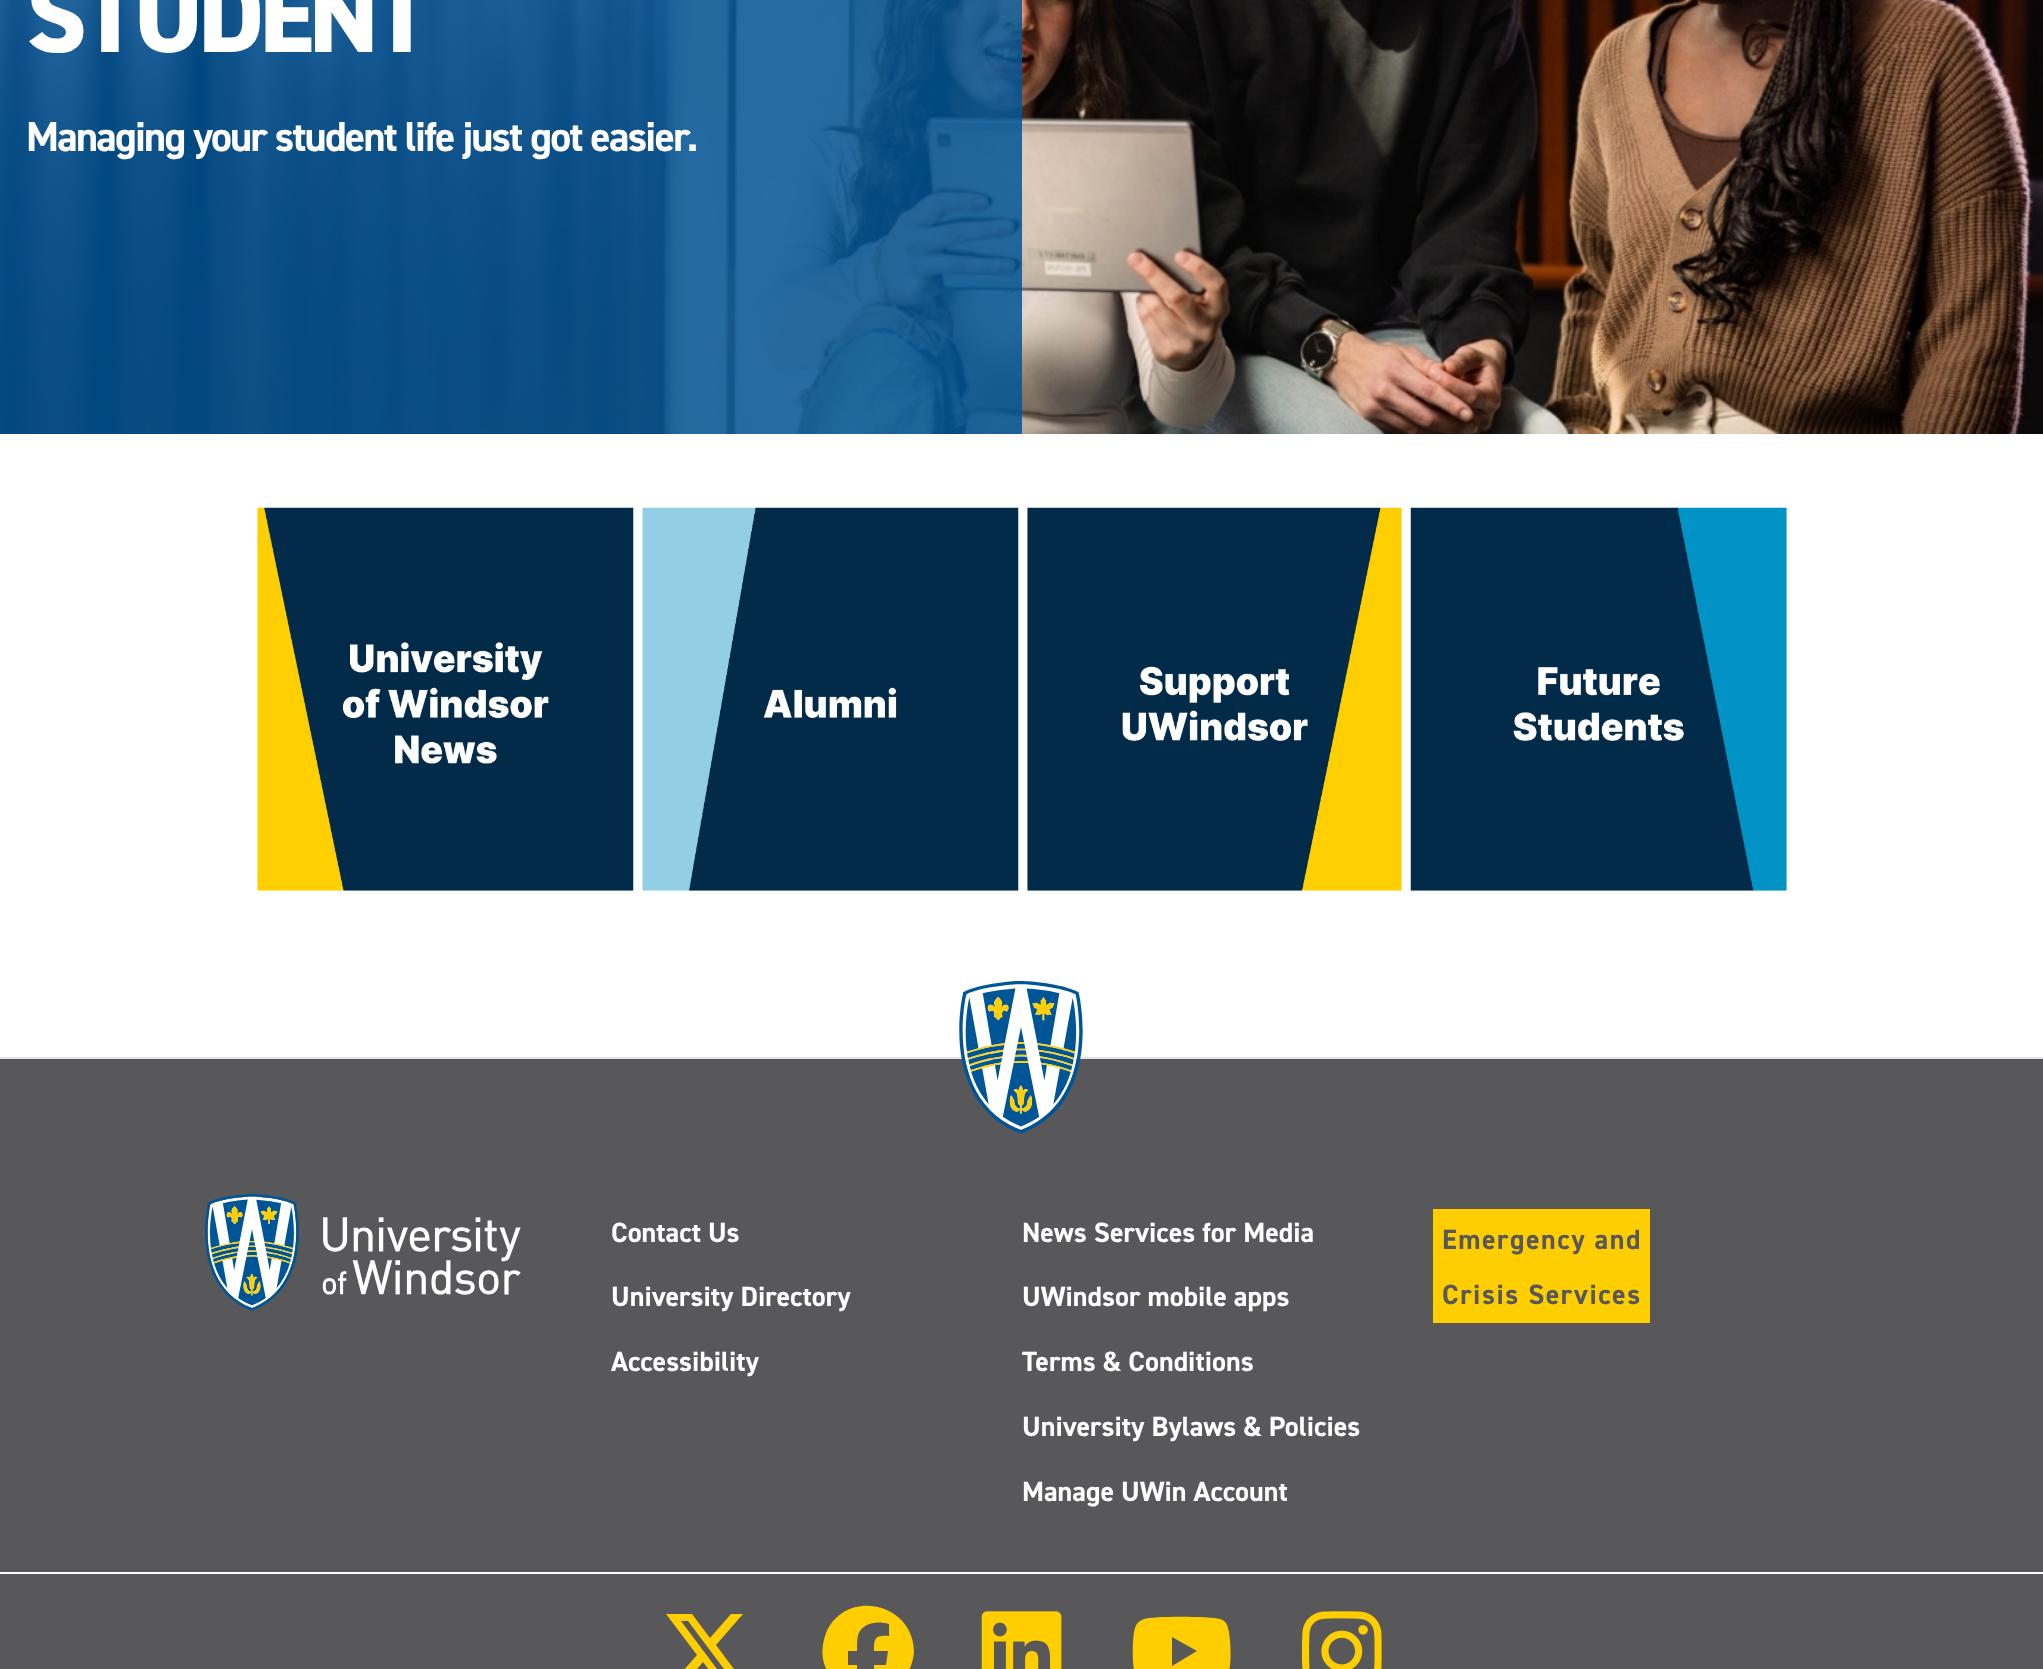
<svg xmlns="http://www.w3.org/2000/svg" xmlns:xlink="http://www.w3.org/1999/xlink" width="2043" height="1669" viewBox="0 0 2043 1669">
<style>
.cls-1{font:800 105px 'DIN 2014';letter-spacing:-5.25px;fill:#ffffff}
.cls-2{font:bold 42px 'DIN 2014';letter-spacing:-1.75px;fill:#ffffff}
.cls-3{font:bold 28px 'DIN 2014';fill:#ffffff}
.cls-4{font:bold 28px 'DIN 2014';letter-spacing:1.5px;fill:#58585b}
</style>
<rect width="100%" height="100%" fill="#ffffff"/>
<image xlink:href="image0.png" x="0" y="0" width="2043" height="434"/>
<rect fill="#005596" fill-opacity="0.85" x="0" y="0" width="1022" height="434"/>
<image xlink:href="image1.png" x="257" y="507" width="377" height="384"/>
<image xlink:href="image2.png" x="642" y="507" width="377" height="384"/>
<image xlink:href="image3.png" x="1027" y="507" width="375" height="384"/>
<image xlink:href="image4.png" x="1410" y="507" width="377" height="384"/>
<rect fill="#58585b" x="0" y="1059" width="2043" height="610"/>
<rect fill="#e5e5e5" x="0" y="1057" width="2043" height="2"/>
<image xlink:href="image5.png" x="959" y="981" width="124" height="153"/>
<image xlink:href="image6.png" x="205" y="1194" width="316" height="117"/>
<rect fill="#ffce00" x="1433" y="1209" width="217" height="114"/>
<rect fill="#ffffff" x="0" y="1572" width="2043" height="2"/>
<path fill="#ffce00" d="M731 1614H743H731H743L716 1645L748 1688H723L703 1662L681 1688H668L697 1655L666 1614H692L710 1638ZM726 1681H733H726H733L688 1621H681Z"/>
<path fill="#ffce00" d="M914 1651C913 1602 845 1588 826 1633C822 1644 821 1656 825 1666C830 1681 842 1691 857 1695V1665H848V1651H857C857 1646 857 1640 858 1635C863 1622 878 1621 889 1624V1636C875 1635 874 1638 874 1651H888L886 1665H874V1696C896 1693 913 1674 914 1651Z"/>
<image xlink:href="image7.png" x="981" y="1611" width="81" height="58"/>
<path fill="#ffce00" d="M1228 1628C1227 1623 1224 1620 1220 1619C1210 1616 1153 1616 1144 1619L1140 1621C1137 1623 1136 1625 1135 1628C1132 1637 1132 1666 1135 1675C1136 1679 1140 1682 1144 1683C1154 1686 1209 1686 1220 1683C1222 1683 1223 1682 1225 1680C1233 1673 1231 1638 1228 1628ZM1172 1666V1637V1666V1637L1197 1651Z"/>
<image xlink:href="image8.png" x="1302" y="1611" width="80" height="58"/>
<text class="cls-1" x="26" y="52">STUDENT</text>
<text class="cls-2" x="26" y="151">Managing your student life just got easier.</text>
<text class="cls-3" x="611" y="1242">Contact Us</text>
<text class="cls-3" x="611" y="1306">University Directory</text>
<text class="cls-3" x="611" y="1371">Accessibility</text>
<text class="cls-3" x="1022" y="1242">News Services for Media</text>
<text class="cls-3" x="1022" y="1306">UWindsor mobile apps</text>
<text class="cls-3" x="1022" y="1371">Terms &amp; Conditions</text>
<text class="cls-3" x="1022" y="1436">University Bylaws &amp; Policies</text>
<text class="cls-3" x="1022" y="1501">Manage UWin Account</text>
<text class="cls-4"><tspan x="1442" y="1249">Emergency and</tspan><tspan x="1442" y="1304">Crisis Services</tspan></text>
</svg>
